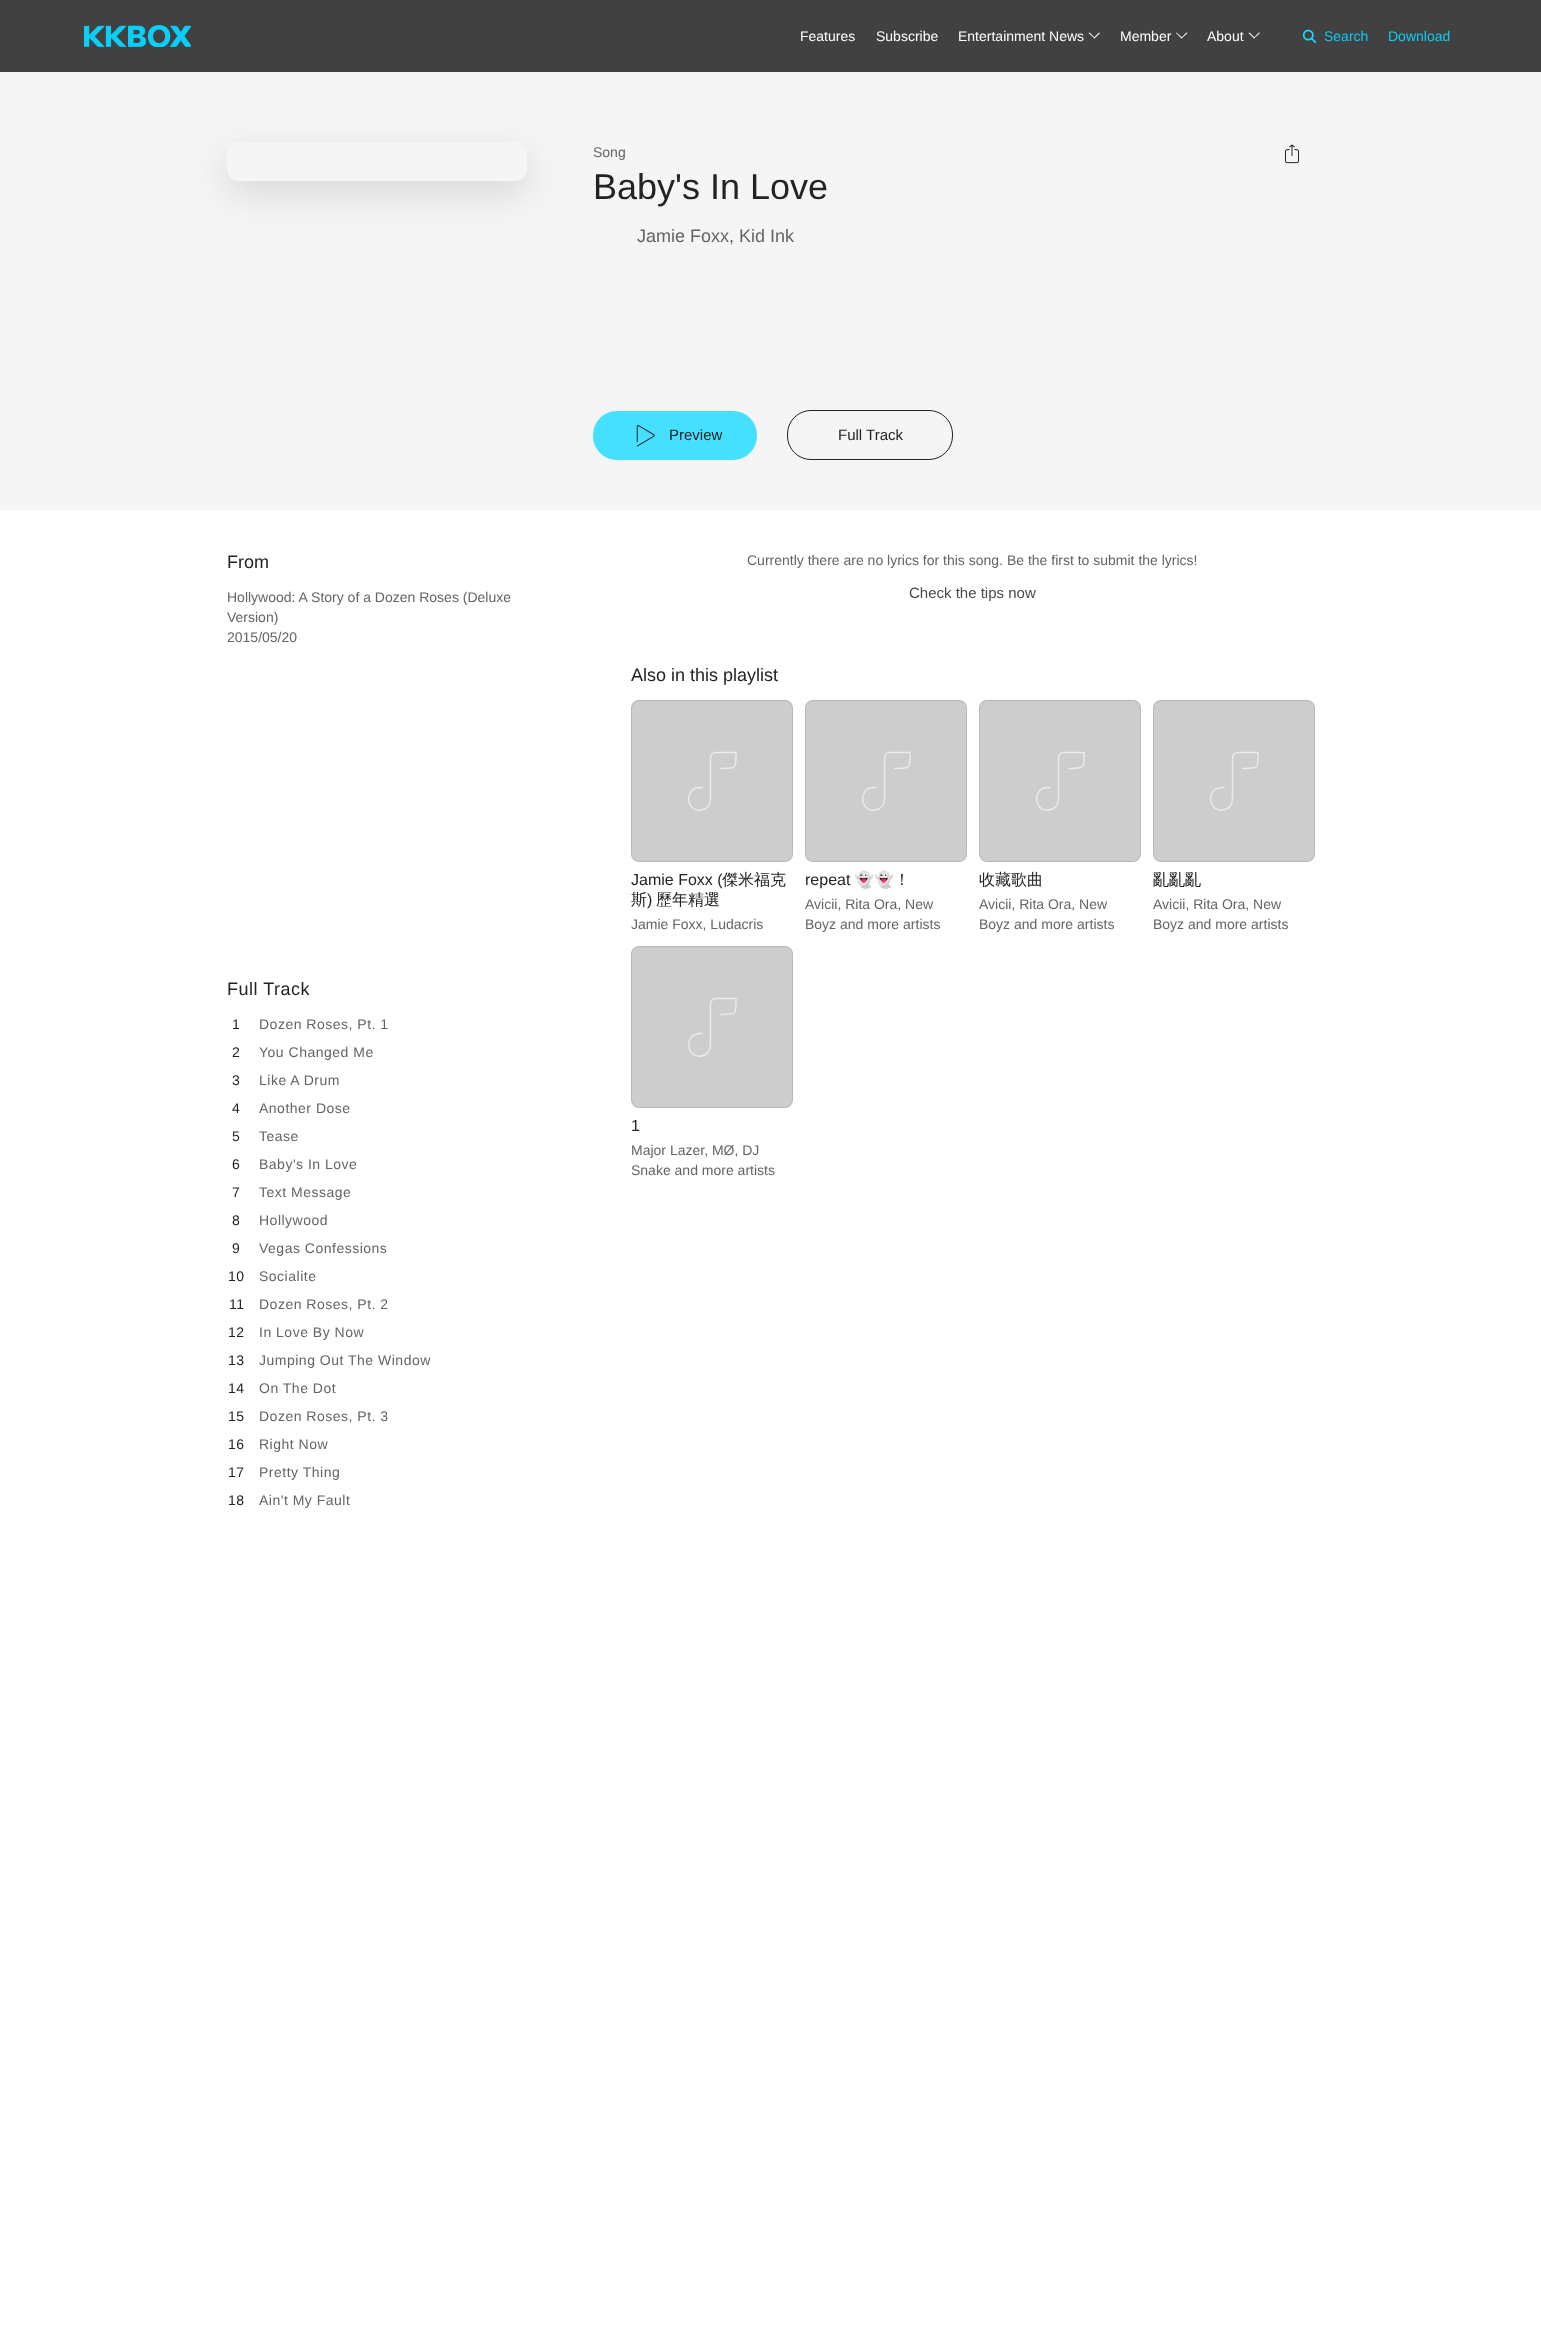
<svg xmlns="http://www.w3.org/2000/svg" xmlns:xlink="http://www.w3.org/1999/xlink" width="1541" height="2336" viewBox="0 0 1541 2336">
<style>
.cls-1{font:14px Liberation Sans;fill:#ffffff}
.cls-2{font:14px Liberation Sans;fill:#09cef6}
.cls-3{font:14px Liberation Sans;fill:#646464}
.cls-4{font:36px Liberation Sans;fill:#232323}
.cls-5{font:18px Liberation Sans;fill:#646464}
.cls-6{font:15px Liberation Sans;fill:#232323}
.cls-7{font:18px Liberation Sans;fill:#232323}
.cls-8{font:18px Liberation Sans;letter-spacing:0.5px;fill:#232323}
.cls-9{font:14px Liberation Sans;letter-spacing:0.5px;fill:#232323}
.cls-10{font:14px Liberation Sans;letter-spacing:0.5px;fill:#646464}
.cls-11{font:15px Liberation Sans;fill:#4b4b4b}
.cls-12{font:16px Liberation Sans;fill:#232323}
.cls-13{font:500 16px WenQuanYi Zen Hei;fill:#232323}
.cls-14{font:16px Noto Color Emoji;fill:#232323}
</style>
<defs>
<clipPath id="clip1"><path d="M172 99H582V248H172ZM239 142H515C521.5 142 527 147.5 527 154V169C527 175.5 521.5 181 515 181H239C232.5 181 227 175.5 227 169V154C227 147.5 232.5 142 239 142Z" clip-rule="evenodd"/></clipPath>
</defs>
<rect width="100%" height="100%" fill="#ffffff"/>
<rect fill="#414141" x="0" y="0" width="1541" height="72"/>
<image xlink:href="image0.png" x="84" y="25" width="107" height="22"/>
<path fill="#ffffff" d="M1099 32.5L1100 33L1094.5 38.5L1093.5 38Z"/>
<path fill="#ffffff" d="M1089.5 32.5L1095 38L1094.5 38.5L1088.5 33Z"/>
<path fill="#ffffff" d="M1186.5 32.5L1187.5 33L1181.5 38.5L1181 38Z"/>
<path fill="#ffffff" d="M1176.5 32.5L1182.5 38L1181.5 38.5L1176 33Z"/>
<path fill="#ffffff" d="M1259 32.5L1260 33L1254 38.5L1253.5 38Z"/>
<path fill="#ffffff" d="M1249.5 32.5L1255 38L1254 38.5L1248.5 33Z"/>
<image xlink:href="image1.png" x="1302" y="29" width="15" height="14"/>
<rect fill="#f5f5f5" x="0" y="72" width="1541" height="438"/>
<g clip-path="url(#clip1)">
<rect fill="#000000" fill-opacity="0.12" filter="blur(18px)" x="227" y="154" width="300" height="39" rx="12"/>
</g>
<image xlink:href="image2.png" x="1285" y="144" width="14" height="20"/>
<rect fill="#46e0ff" x="593" y="411" width="164" height="49" rx="24"/>
<image xlink:href="image3.png" x="636" y="425" width="19" height="22"/>
<rect fill="none" stroke="#232323" x="787.5" y="410.5" width="165" height="49" rx="23.5"/>
<rect fill="#cdcdcd" x="631" y="700" width="162" height="162" rx="8"/>
<path fill="none" stroke="#ebebeb" stroke-width="1.4" stroke-linecap="round" stroke-linejoin="round" d="M702 787.5C681.5 786 686.5 816.5 704.5 809C710.5 806.5 710.5 800.5 710.5 795V797V758C710.5 754.5 713.5 752.5 715.5 752.5H736C736 769 737 768.5 721 768.5"/>
<rect fill="none" stroke="#000000" stroke-opacity="0.1" x="631.5" y="700.5" width="161" height="161" rx="7.5"/>
<rect fill="#cdcdcd" x="805" y="700" width="162" height="162" rx="8"/>
<path fill="none" stroke="#ebebeb" stroke-width="1.4" stroke-linecap="round" stroke-linejoin="round" d="M876 787.5C855.5 786 860.5 816.5 878.5 809C884.5 806.5 884.5 800.5 884.5 795V797V758C884.5 754.5 887.5 752.5 889.5 752.5H910C910 769 911 768.5 895 768.5"/>
<rect fill="none" stroke="#000000" stroke-opacity="0.1" x="805.5" y="700.5" width="161" height="161" rx="7.5"/>
<rect fill="#cdcdcd" x="979" y="700" width="162" height="162" rx="8"/>
<path fill="none" stroke="#ebebeb" stroke-width="1.4" stroke-linecap="round" stroke-linejoin="round" d="M1050 787.5C1029.5 786 1034.5 816.5 1052.5 809C1058.5 806.5 1058.5 800.5 1058.5 795V797V758C1058.5 754.5 1061.5 752.5 1063.5 752.5H1084C1084 769 1085 768.5 1069 768.5"/>
<rect fill="none" stroke="#000000" stroke-opacity="0.1" x="979.5" y="700.5" width="161" height="161" rx="7.5"/>
<rect fill="#cdcdcd" x="1153" y="700" width="162" height="162" rx="8"/>
<path fill="none" stroke="#ebebeb" stroke-width="1.4" stroke-linecap="round" stroke-linejoin="round" d="M1224 787.5C1203.5 786 1208.5 816.5 1226.5 809C1232.5 806.5 1232.5 800.5 1232.5 795V797V758C1232.5 754.5 1235.5 752.5 1237.5 752.5H1258C1258 769 1259 768.5 1243 768.5"/>
<rect fill="none" stroke="#000000" stroke-opacity="0.1" x="1153.5" y="700.5" width="161" height="161" rx="7.5"/>
<rect fill="#cdcdcd" x="631" y="946" width="162" height="162" rx="8"/>
<path fill="none" stroke="#ebebeb" stroke-width="1.4" stroke-linecap="round" stroke-linejoin="round" d="M702 1033.5C681.5 1032 686.5 1062.5 704.5 1055C710.5 1052.5 710.5 1046.5 710.5 1041V1043V1004C710.5 1000.5 713.5 998.5 715.5 998.5H736C736 1015 737 1014.5 721 1014.5"/>
<rect fill="none" stroke="#000000" stroke-opacity="0.1" x="631.5" y="946.5" width="161" height="161" rx="7.5"/>
<text class="cls-1" x="800" y="41">Features</text>
<text class="cls-1" x="876" y="41">Subscribe</text>
<text class="cls-1" x="958" y="41">Entertainment News</text>
<text class="cls-1" x="1120" y="41">Member</text>
<text class="cls-1" x="1207" y="41">About</text>
<text class="cls-2" x="1324" y="41">Search</text>
<text class="cls-2" x="1388" y="41">Download</text>
<text class="cls-3" x="593" y="157">Song</text>
<text class="cls-4" x="593" y="199">Baby's In Love</text>
<text class="cls-5" x="637" y="242">Jamie Foxx, Kid Ink</text>
<text class="cls-6" x="669" y="440">Preview</text>
<text class="cls-6" x="838" y="440">Full Track</text>
<text class="cls-7" x="227" y="568">From</text>
<text class="cls-3"><tspan x="227" y="602">Hollywood: A Story of a Dozen Roses (Deluxe</tspan><tspan x="227" y="622">Version)</tspan><tspan x="227" y="642">2015/05/20</tspan></text>
<text class="cls-8" x="227" y="995">Full Track</text>
<text class="cls-9" x="232" y="1029">1</text>
<text class="cls-10" x="259" y="1029">Dozen Roses, Pt. 1</text>
<text class="cls-9" x="232" y="1057">2</text>
<text class="cls-10" x="259" y="1057">You Changed Me</text>
<text class="cls-9" x="232" y="1085">3</text>
<text class="cls-10" x="259" y="1085">Like A Drum</text>
<text class="cls-9" x="232" y="1113">4</text>
<text class="cls-10" x="259" y="1113">Another Dose</text>
<text class="cls-9" x="232" y="1141">5</text>
<text class="cls-10" x="259" y="1141">Tease</text>
<text class="cls-9" x="232" y="1169">6</text>
<text class="cls-10" x="259" y="1169">Baby's In Love</text>
<text class="cls-9" x="232" y="1197">7</text>
<text class="cls-10" x="259" y="1197">Text Message</text>
<text class="cls-9" x="232" y="1225">8</text>
<text class="cls-10" x="259" y="1225">Hollywood</text>
<text class="cls-9" x="232" y="1253">9</text>
<text class="cls-10" x="259" y="1253">Vegas Confessions</text>
<text class="cls-9" x="228" y="1281">10</text>
<text class="cls-10" x="259" y="1281">Socialite</text>
<text class="cls-9" x="229" y="1309">11</text>
<text class="cls-10" x="259" y="1309">Dozen Roses, Pt. 2</text>
<text class="cls-9" x="228" y="1337">12</text>
<text class="cls-10" x="259" y="1337">In Love By Now</text>
<text class="cls-9" x="228" y="1365">13</text>
<text class="cls-10" x="259" y="1365">Jumping Out The Window</text>
<text class="cls-9" x="228" y="1393">14</text>
<text class="cls-10" x="259" y="1393">On The Dot</text>
<text class="cls-9" x="228" y="1421">15</text>
<text class="cls-10" x="259" y="1421">Dozen Roses, Pt. 3</text>
<text class="cls-9" x="228" y="1449">16</text>
<text class="cls-10" x="259" y="1449">Right Now</text>
<text class="cls-9" x="228" y="1477">17</text>
<text class="cls-10" x="259" y="1477">Pretty Thing</text>
<text class="cls-9" x="228" y="1505">18</text>
<text class="cls-10" x="259" y="1505">Ain't My Fault</text>
<text class="cls-3" x="747" y="565">Currently there are no lyrics for this song. Be the first to submit the lyrics!</text>
<text class="cls-11" x="909" y="598">Check the tips now</text>
<text class="cls-7" x="631" y="681">Also in this playlist</text>
<text class="cls-12" x="631" y="885">Jamie Foxx (</text>
<text class="cls-13" x="722" y="885">傑米福克</text>
<text class="cls-13" x="631" y="905">斯</text>
<text class="cls-12" x="647" y="905">)</text>
<text class="cls-13" x="656" y="905">歷年精選</text>
<text class="cls-3" x="631" y="929">Jamie Foxx, Ludacris</text>
<text class="cls-12" x="805" y="885">repeat</text>
<text class="cls-14" x="854" y="885">👻👻</text>
<text class="cls-13" x="894" y="885">！</text>
<text class="cls-3"><tspan x="805" y="909">Avicii, Rita Ora, New</tspan><tspan x="805" y="929">Boyz and more artists</tspan></text>
<text class="cls-13" x="979" y="885">收藏歌曲</text>
<text class="cls-3"><tspan x="979" y="909">Avicii, Rita Ora, New</tspan><tspan x="979" y="929">Boyz and more artists</tspan></text>
<text class="cls-13" x="1153" y="885">亂亂亂</text>
<text class="cls-3"><tspan x="1153" y="909">Avicii, Rita Ora, New</tspan><tspan x="1153" y="929">Boyz and more artists</tspan></text>
<text class="cls-12" x="631" y="1131">1</text>
<text class="cls-3"><tspan x="631" y="1155">Major Lazer, MØ, DJ</tspan><tspan x="631" y="1175">Snake and more artists</tspan></text>
</svg>
